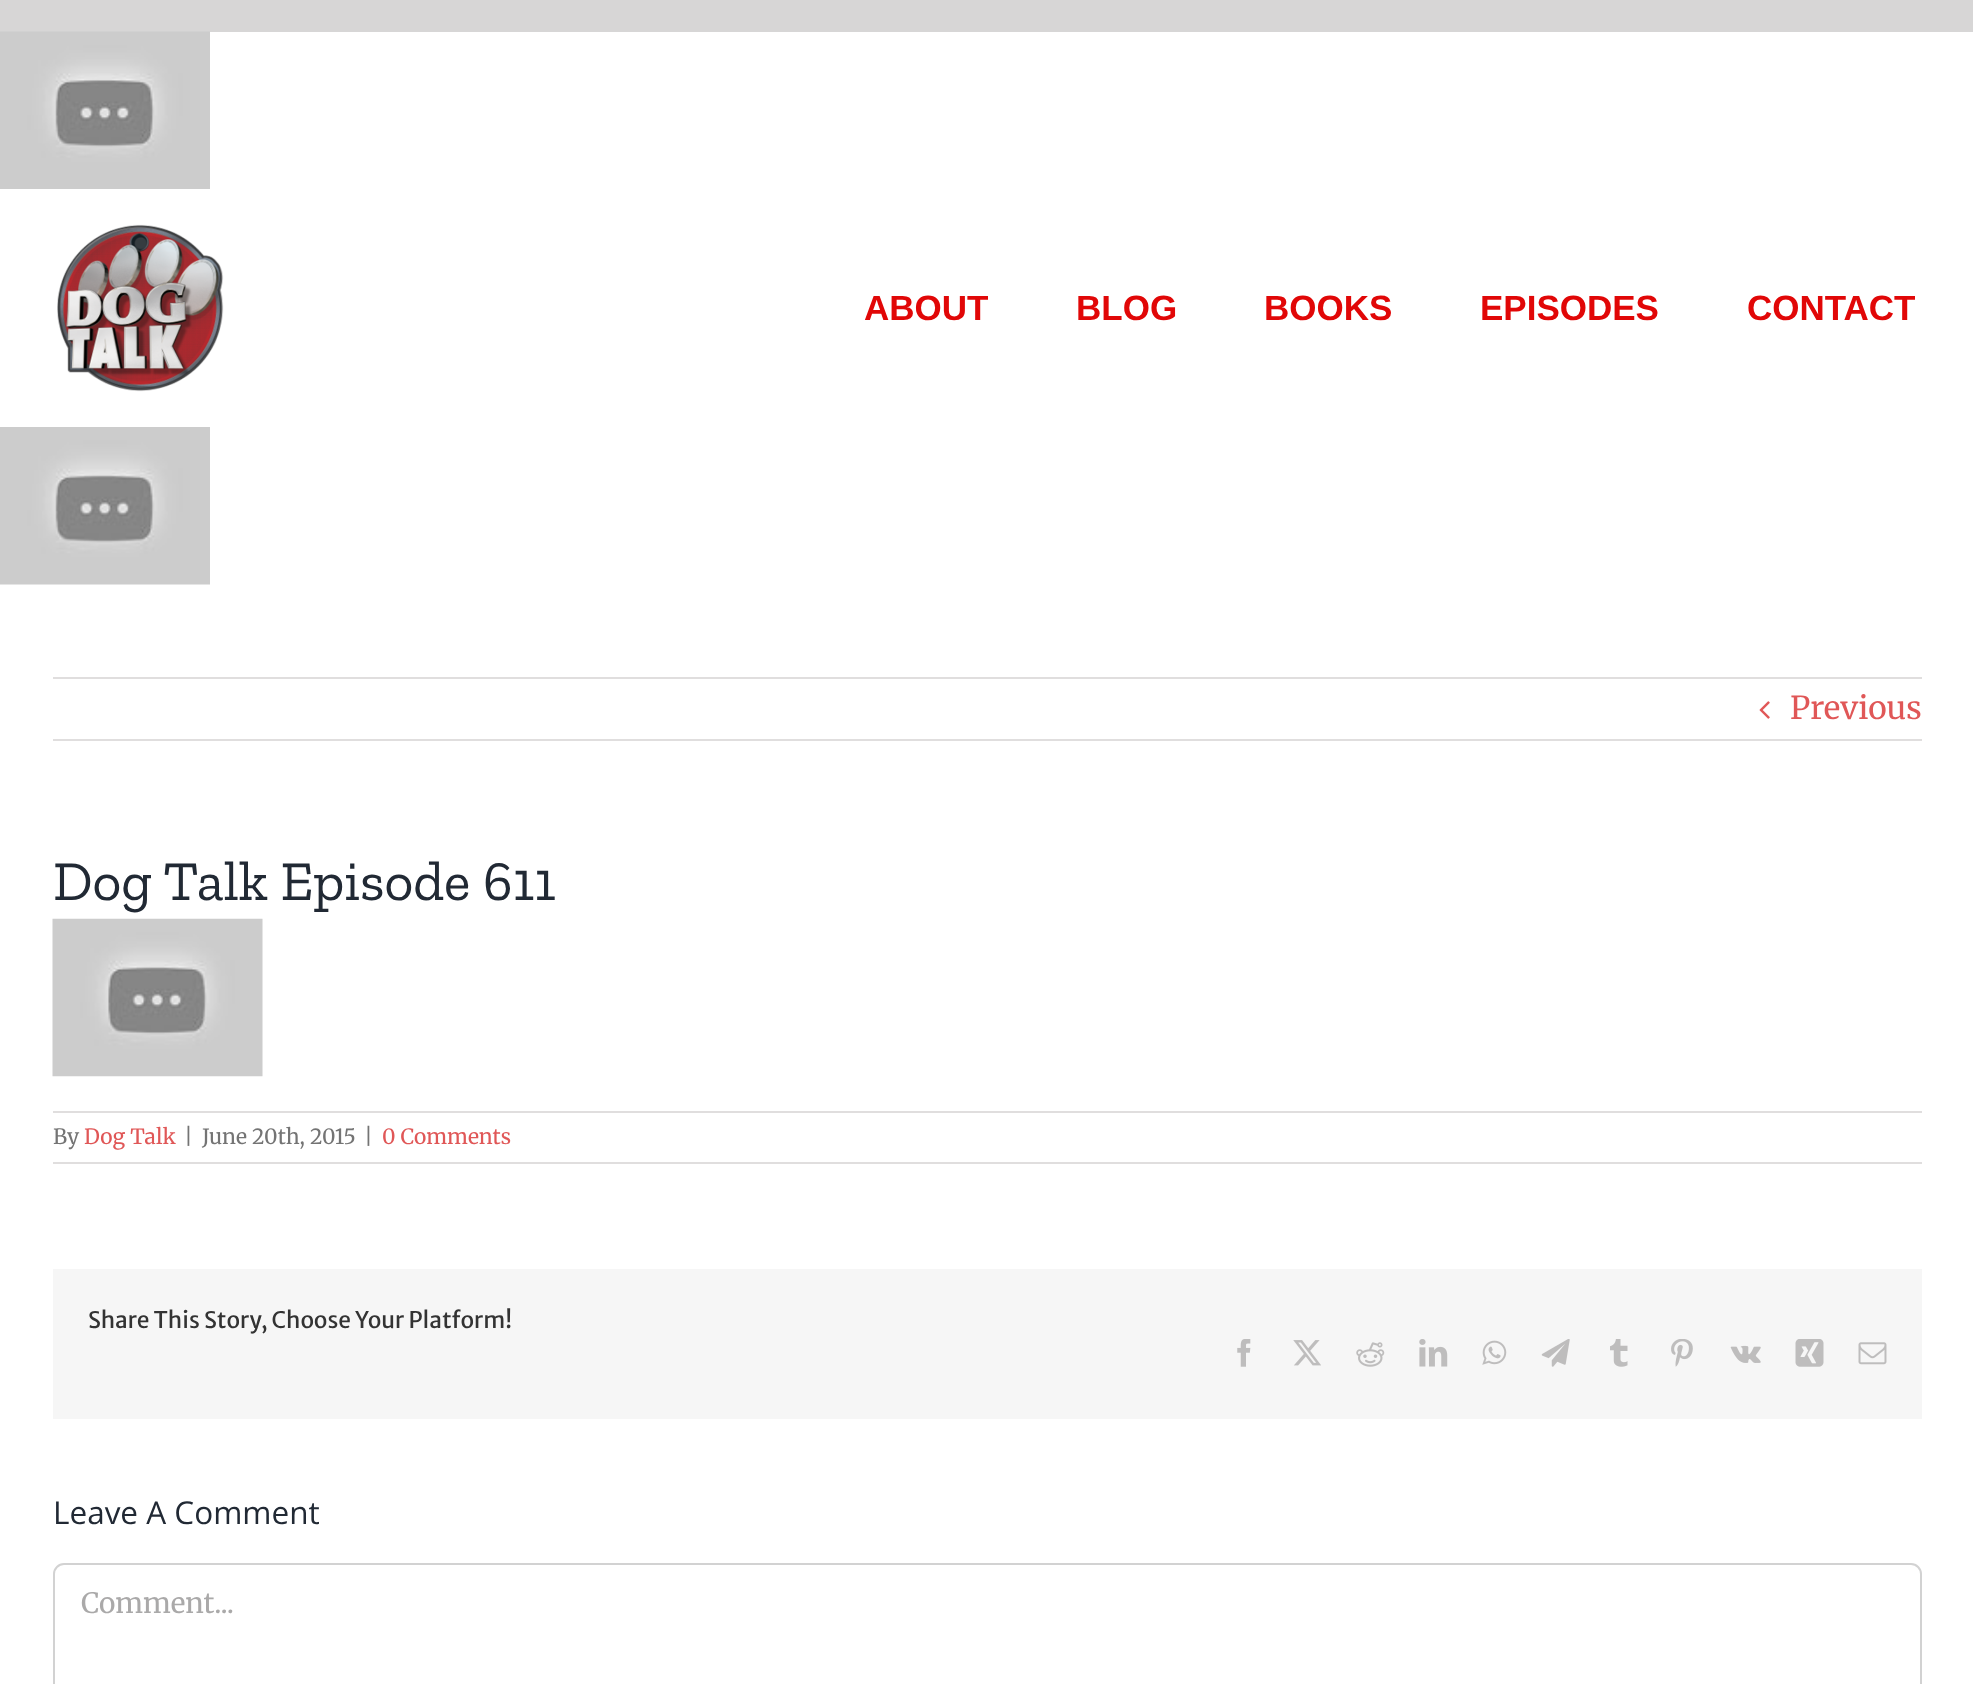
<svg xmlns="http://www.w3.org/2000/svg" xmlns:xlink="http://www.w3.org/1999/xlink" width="1973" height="1684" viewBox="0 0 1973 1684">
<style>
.cls-1{font:bold 35px Liberation Sans;fill:#e10707}
.cls-2{font:31.5px Merriweather;fill:#e05757}
.cls-3{font:56px Zilla Slab;fill:#212934}
.cls-4{font:21px Merriweather;fill:#747474}
.cls-5{font:21px Merriweather;fill:#e05757}
.cls-6{font:22.75px Merriweather Sans;fill:#333333}
.cls-7{font:31.5px Open Sans;fill:#212934}
.cls-8{font:28px Merriweather;fill:#aaa9a9}
</style>
<rect width="100%" height="100%" fill="#d7d6d6"/>
<rect fill="#ffffff" x="0" y="32" width="1973" height="1652"/>
<image xlink:href="image0.png" x="0" y="31" width="210" height="158"/>
<image xlink:href="image1.png" x="57" y="224" width="167" height="168"/>
<image xlink:href="image2.png" x="0" y="427" width="210" height="158"/>
<rect fill="#e0dede" x="53" y="677" width="1869" height="2"/>
<rect fill="#e0dede" x="53" y="739" width="1869" height="2"/>
<image xlink:href="image3.png" x="1759" y="701" width="11" height="18"/>
<image xlink:href="image4.png" x="52" y="918" width="211" height="159"/>
<rect fill="#e0dede" x="53" y="1111" width="1869" height="2"/>
<rect fill="#e0dede" x="53" y="1162" width="1869" height="2"/>
<rect fill="#f6f6f6" x="53" y="1269" width="1869" height="150"/>
<image xlink:href="image5.png" x="1237" y="1339" width="14" height="28"/>
<image xlink:href="image6.png" x="1293" y="1340" width="28" height="26"/>
<image xlink:href="image7.png" x="1356" y="1342" width="29" height="25"/>
<image xlink:href="image8.png" x="1419" y="1339" width="29" height="28"/>
<image xlink:href="image9.png" x="1482" y="1340" width="25" height="25"/>
<image xlink:href="image10.png" x="1541" y="1339" width="29" height="28"/>
<image xlink:href="image11.png" x="1610" y="1339" width="18" height="28"/>
<image xlink:href="image12.png" x="1671" y="1339" width="22" height="28"/>
<image xlink:href="image13.png" x="1730" y="1345" width="31" height="18"/>
<image xlink:href="image14.png" x="1795" y="1339" width="29" height="28"/>
<image xlink:href="image15.png" x="1858" y="1342" width="29" height="23"/>
<rect fill="none" stroke="#d2d2d2" stroke-width="2" x="54" y="1564" width="1867" height="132" rx="10"/>
<text class="cls-1" x="864" y="320">ABOUT</text>
<text class="cls-1" x="1076" y="320">BLOG</text>
<text class="cls-1" x="1264" y="320">BOOKS</text>
<text class="cls-1" x="1480" y="320">EPISODES</text>
<text class="cls-1" x="1747" y="320">CONTACT</text>
<text class="cls-2" x="1790" y="719">Previous</text>
<text class="cls-3" x="53" y="900">Dog Talk Episode 611</text>
<text class="cls-4" x="53" y="1144">By</text>
<text class="cls-5" x="84" y="1144">Dog Talk</text>
<text class="cls-4" x="184" y="1144">|</text>
<text class="cls-4" x="202" y="1144">June 20th, 2015</text>
<text class="cls-4" x="364" y="1144">|</text>
<text class="cls-5" x="382" y="1144">0 Comments</text>
<text class="cls-6" x="88" y="1328">Share This Story, Choose Your Platform!</text>
<text class="cls-7" x="53" y="1524">Leave A Comment</text>
<text class="cls-8" x="81" y="1613">Comment...</text>
</svg>
